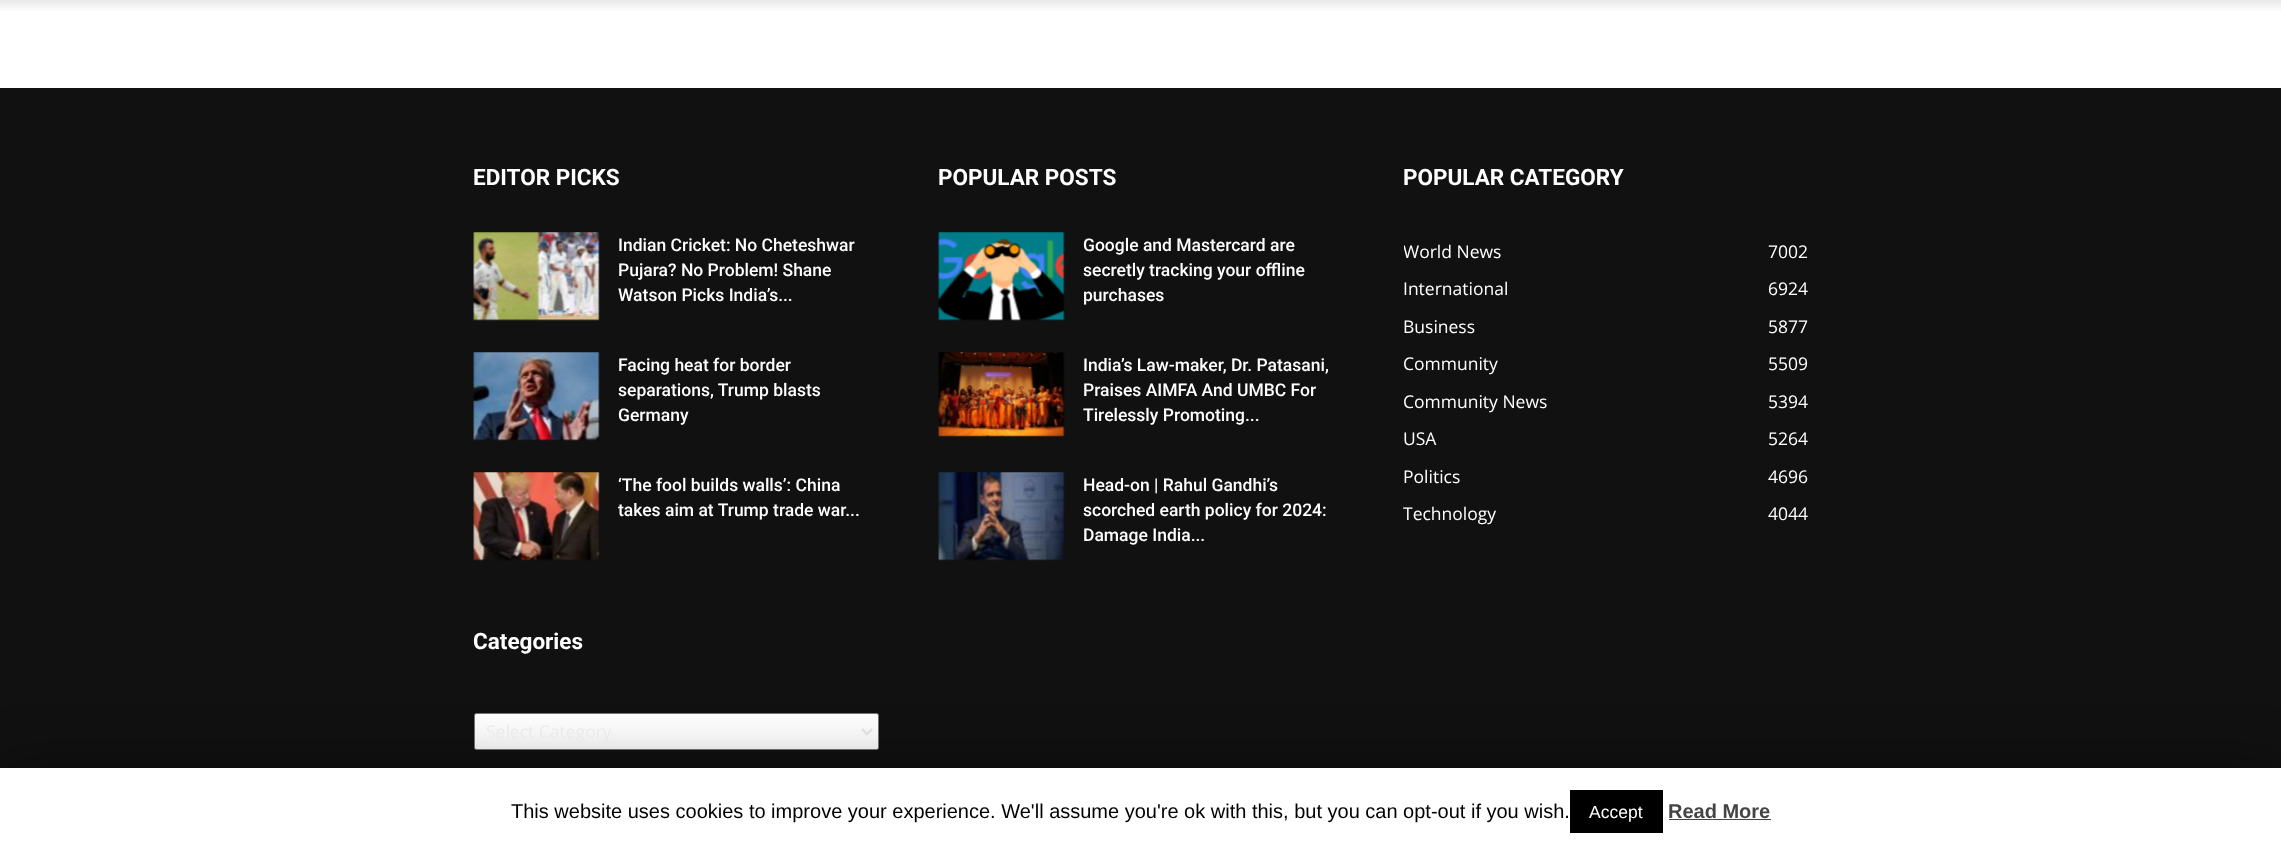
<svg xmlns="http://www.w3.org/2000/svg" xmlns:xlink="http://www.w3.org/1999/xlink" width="2281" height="848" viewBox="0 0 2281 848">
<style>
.cls-1{font:bold 22.5px Roboto;fill:#ffffff}
.cls-2{font:500 17.5px Roboto;fill:#ffffff}
.cls-3{font:17.5px Open Sans;fill:#eaeaea}
.cls-4{font:17.5px Open Sans;fill:#ffffff}
.cls-5{font:20px Liberation Sans;fill:#000000}
.cls-6{font:17.5px Liberation Sans;fill:#ffffff}
.cls-7{font:bold 20px Liberation Sans;fill:#444444}
</style>
<defs>
<clipPath id="clip1"><rect x="1404" y="156" width="405" height="377"/></clipPath>
</defs>
<rect width="100%" height="100%" fill="#ffffff"/>
<image xlink:href="image0.png" x="0" y="0" width="2281" height="11"/>
<rect fill="#111111" x="0" y="88" width="2281" height="680"/>
<image xlink:href="image1.png" x="473" y="232" width="127" height="89"/>
<image xlink:href="image2.png" x="473" y="352" width="127" height="89"/>
<image xlink:href="image3.png" x="473" y="472" width="127" height="89"/>
<rect fill="#ffffff" stroke="#767676" x="474.5" y="713.5" width="404" height="36" rx="2"/>
<path fill="none" stroke="#eaeaea" stroke-width="2.5" d="M862 729L867 734L872 729"/>
<image xlink:href="image4.png" x="938" y="232" width="127" height="89"/>
<image xlink:href="image5.png" x="938" y="352" width="127" height="85"/>
<image xlink:href="image6.png" x="938" y="472" width="127" height="89"/>
<rect fill="#000000" fill-opacity="0.5" filter="blur(31px)" x="0" y="774" width="2281" height="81"/>
<rect fill="#ffffff" x="0" y="768" width="2281" height="80"/>
<rect fill="#000000" x="1570" y="790" width="93" height="43"/>
<rect fill="#444444" x="1669" y="819" width="102" height="1"/>
<text class="cls-1" x="473" y="185">EDITOR PICKS</text>
<text class="cls-2"><tspan x="618" y="251">Indian Cricket: No Cheteshwar</tspan><tspan x="618" y="276">Pujara? No Problem! Shane</tspan><tspan x="618" y="301">Watson Picks India’s...</tspan></text>
<text class="cls-2"><tspan x="618" y="371">Facing heat for border</tspan><tspan x="618" y="396">separations, Trump blasts</tspan><tspan x="618" y="421">Germany</tspan></text>
<text class="cls-2"><tspan x="618" y="491">‘The fool builds walls’: China</tspan><tspan x="618" y="516">takes aim at Trump trade war...</tspan></text>
<text class="cls-1" x="473" y="649">Categories</text>
<text class="cls-3" x="486" y="738">Select Category</text>
<text class="cls-1" x="938" y="185">POPULAR POSTS</text>
<text class="cls-2"><tspan x="1083" y="251">Google and Mastercard are</tspan><tspan x="1083" y="276">secretly tracking your offline</tspan><tspan x="1083" y="301">purchases</tspan></text>
<text class="cls-2"><tspan x="1083" y="371">India’s Law-maker, Dr. Patasani,</tspan><tspan x="1083" y="396">Praises AIMFA And UMBC For</tspan><tspan x="1083" y="421">Tirelessly Promoting...</tspan></text>
<text class="cls-2"><tspan x="1083" y="491">Head-on | Rahul Gandhi’s</tspan><tspan x="1083" y="516">scorched earth policy for 2024:</tspan><tspan x="1083" y="541">Damage India...</tspan></text>
<text class="cls-1" x="1403" y="185">POPULAR CATEGORY</text>
<g clip-path="url(#clip1)">
<text class="cls-4" x="1403" y="258">World News</text>
</g>
<text class="cls-4" x="1768" y="258">7002</text>
<text class="cls-4" x="1403" y="295">International</text>
<text class="cls-4" x="1768" y="295">6924</text>
<text class="cls-4" x="1403" y="333">Business</text>
<text class="cls-4" x="1768" y="333">5877</text>
<text class="cls-4" x="1403" y="370">Community</text>
<text class="cls-4" x="1768" y="370">5509</text>
<text class="cls-4" x="1403" y="408">Community News</text>
<text class="cls-4" x="1768" y="408">5394</text>
<text class="cls-4" x="1403" y="445">USA</text>
<text class="cls-4" x="1768" y="445">5264</text>
<text class="cls-4" x="1403" y="483">Politics</text>
<text class="cls-4" x="1768" y="483">4696</text>
<text class="cls-4" x="1403" y="520">Technology</text>
<text class="cls-4" x="1768" y="520">4044</text>
<text class="cls-5" x="511" y="818">This website uses cookies to improve your experience. We'll assume you're ok with this, but you can opt-out if you wish.</text>
<text class="cls-6" x="1589" y="818">Accept</text>
<text class="cls-7" x="1668" y="818">Read More</text>
</svg>
